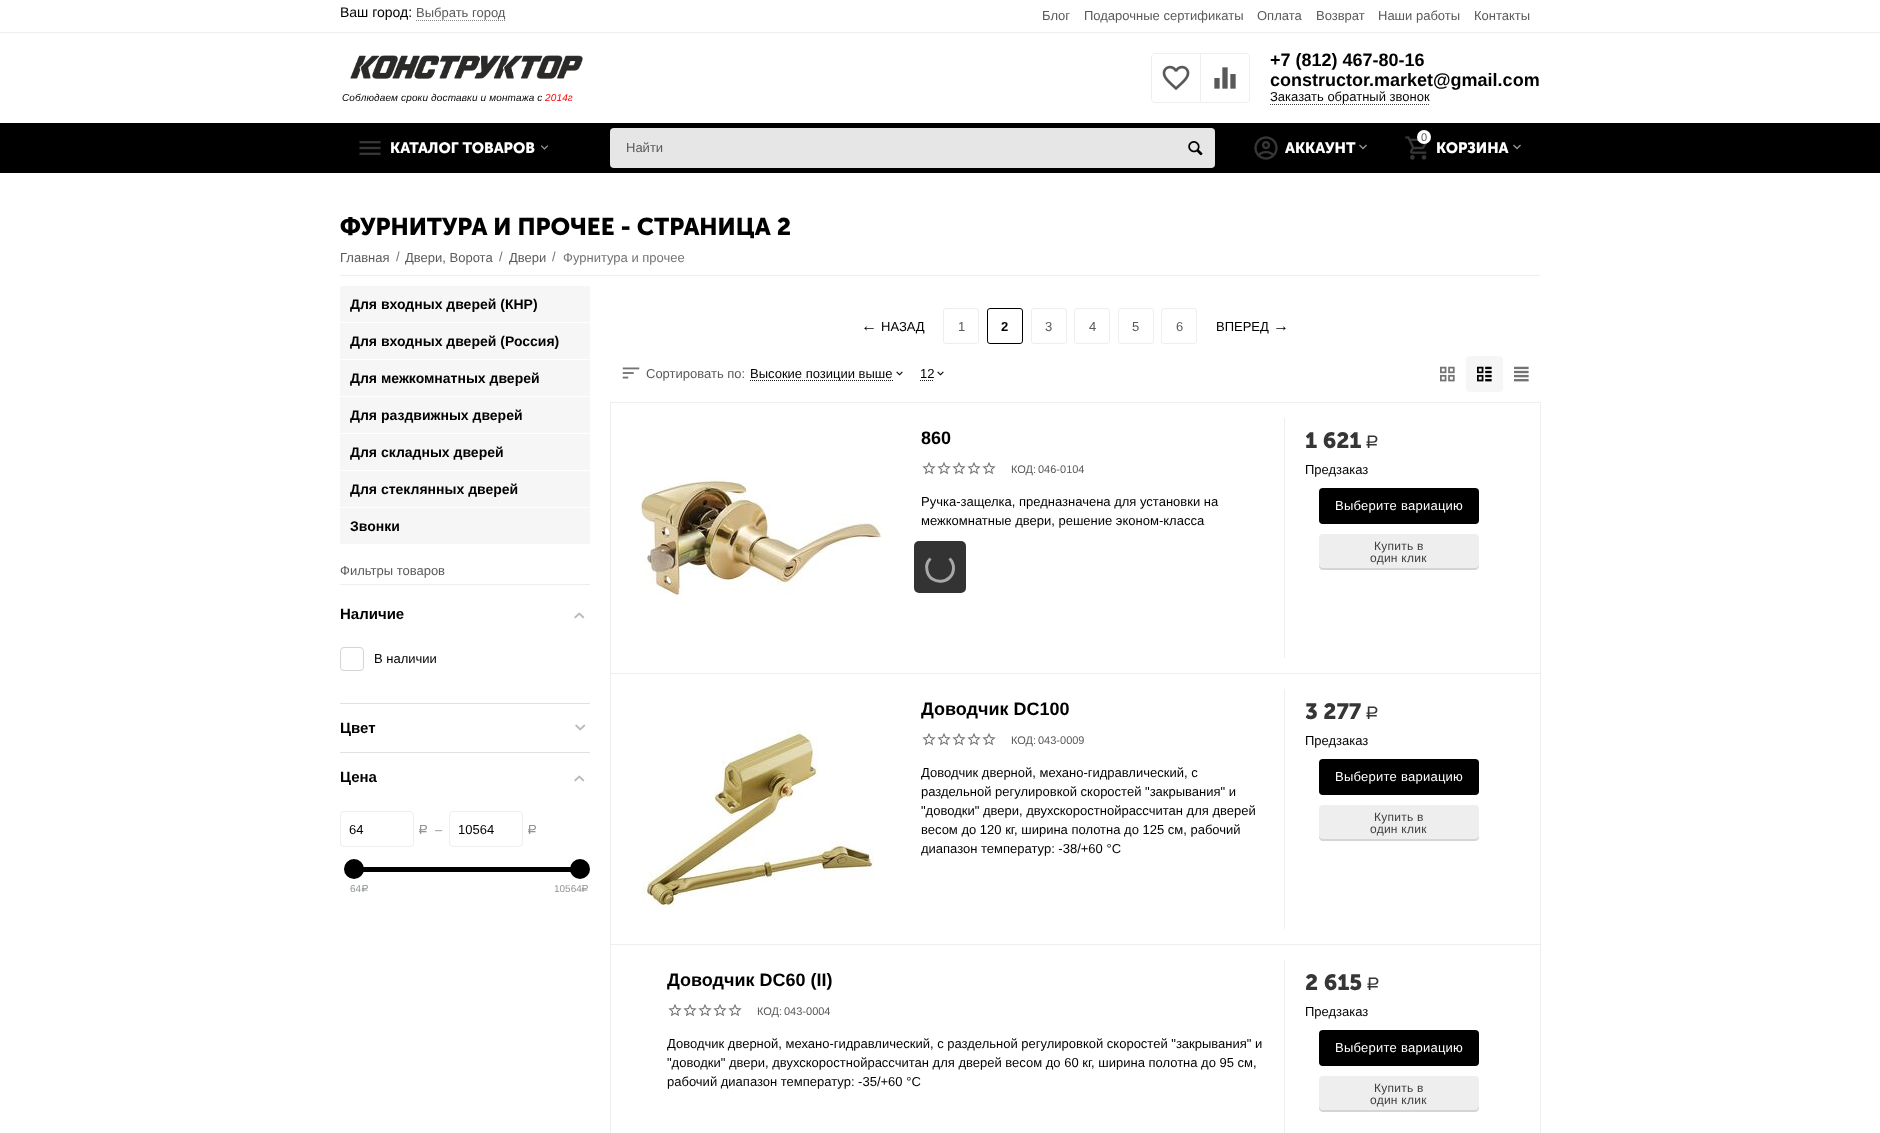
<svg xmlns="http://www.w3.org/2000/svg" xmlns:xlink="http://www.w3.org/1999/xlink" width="1880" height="1133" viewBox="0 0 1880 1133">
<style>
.cls-1{font:14px Liberation Sans;fill:#000000}
.cls-2{font:13px Liberation Sans;fill:#595959}
.cls-3{font:italic 10px Liberation Sans;letter-spacing:0.15px;fill:#000000}
.cls-4{font:italic 10px Liberation Sans;letter-spacing:0.15px;fill:#ff0000}
.cls-5{font:bold 18px Liberation Sans;fill:#000000}
.cls-6{font:13px Liberation Sans;fill:#000000}
.cls-7{font:bold 15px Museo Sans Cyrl;fill:#ffffff}
.cls-8{font:11px Liberation Sans;fill:#595959}
.cls-9{font:bold 24px Museo Sans Cyrl;fill:#000000}
.cls-10{font:13px Liberation Sans;fill:#737373}
.cls-11{font:bold 14px Liberation Sans;fill:#000000}
.cls-12{font:bold 15px Liberation Sans;fill:#000000}
.cls-13{font:13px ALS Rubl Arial;fill:#909598}
.cls-14{font:13px Liberation Sans;fill:#909598}
.cls-15{font:10px Liberation Sans;fill:#909598}
.cls-16{font:10px ALS Rubl Arial;fill:#909598}
.cls-17{font:16px Liberation Sans;fill:#000000}
.cls-18{font:bold 13px Liberation Sans;fill:#000000}
.cls-19{font:bold 22px Museo Sans Cyrl;fill:#363636}
.cls-20{font:18px ALS Rubl Arial;fill:#363636}
.cls-21{font:13px Liberation Sans;letter-spacing:0.25px;fill:#ffffff}
.cls-22{font:12px Liberation Sans;letter-spacing:0.25px;fill:#404040}
</style>
<rect width="100%" height="100%" fill="#ffffff"/>
<rect fill="#eeeeee" x="0" y="32" width="1880" height="1"/>
<path fill="none" stroke="#888888" stroke-dasharray="1 1" d="M416 20.5H506"/>
<image xlink:href="image0.png" x="350" y="55" width="233" height="24"/>
<path fill="none" stroke="#eeeeee" d="M1200.5 53.5H1246C1248 53.5 1249.5 55 1249.5 57V99C1249.5 101 1248 102.5 1246 102.5H1200.5Z"/>
<path fill="#ffffff" stroke="#eeeeee" d="M1155 53.5H1200.5V102.5H1155C1153 102.5 1151.5 101 1151.5 99V57C1151.5 55 1153 53.5 1155 53.5Z"/>
<image xlink:href="image1.png" x="1162" y="65" width="28" height="26"/>
<image xlink:href="image2.png" x="1214" y="67" width="22" height="22"/>
<path fill="none" stroke="#404040" stroke-dasharray="1 1" d="M1270 104.5H1430"/>
<rect fill="#000000" x="0" y="123" width="1880" height="50"/>
<image xlink:href="image3.png" x="359" y="141" width="22" height="14"/>
<image xlink:href="image4.png" x="540" y="145" width="9" height="5"/>
<rect fill="#e6e6e6" x="610" y="128" width="605" height="40" rx="4"/>
<image xlink:href="image5.png" x="1188" y="141" width="15" height="15"/>
<image xlink:href="image6.png" x="1254" y="136" width="24" height="24"/>
<image xlink:href="image7.png" x="1359" y="144" width="8" height="6"/>
<image xlink:href="image8.png" x="1405" y="136" width="23" height="24"/>
<circle fill="#ffffff" cx="1424" cy="137" r="7"/>
<image xlink:href="image7.png" x="1513" y="144" width="8" height="6"/>
<rect fill="#eeeeee" x="340" y="275" width="1200" height="1"/>
<rect fill="#f6f6f6" x="340" y="286" width="250" height="258"/>
<rect fill="#ffffff" x="340" y="322" width="250" height="1"/>
<rect fill="#ffffff" x="340" y="359" width="250" height="1"/>
<rect fill="#ffffff" x="340" y="396" width="250" height="1"/>
<rect fill="#ffffff" x="340" y="433" width="250" height="1"/>
<rect fill="#ffffff" x="340" y="470" width="250" height="1"/>
<rect fill="#ffffff" x="340" y="507" width="250" height="1"/>
<rect fill="#eeeeee" x="340" y="584" width="250" height="1"/>
<image xlink:href="image9.png" x="574" y="612" width="11" height="7"/>
<rect fill="none" stroke="#d5d5d5" x="340.5" y="647.5" width="23" height="23" rx="3.5"/>
<rect fill="#e1e1e1" x="340" y="703" width="250" height="1"/>
<image xlink:href="image10.png" x="575" y="724" width="11" height="7"/>
<rect fill="#e1e1e1" x="340" y="752" width="250" height="1"/>
<image xlink:href="image9.png" x="574" y="775" width="11" height="7"/>
<rect fill="none" stroke="#eeeeee" x="340.5" y="811.5" width="73" height="35" rx="3.5"/>
<rect fill="none" stroke="#eeeeee" x="449.5" y="811.5" width="73" height="35" rx="3.5"/>
<rect fill="#000000" x="363" y="867" width="215" height="5"/>
<circle fill="#000000" cx="354" cy="869" r="10"/>
<circle fill="#000000" cx="580" cy="869" r="10"/>
<rect fill="none" stroke="#eeeeee" x="943.5" y="308.5" width="35" height="35" rx="2.5"/>
<rect fill="none" stroke="#000000" x="987.5" y="308.5" width="35" height="35" rx="2.5"/>
<rect fill="none" stroke="#eeeeee" x="1031.5" y="308.5" width="35" height="35" rx="2.5"/>
<rect fill="none" stroke="#eeeeee" x="1074.5" y="308.5" width="35" height="35" rx="2.5"/>
<rect fill="none" stroke="#eeeeee" x="1118.5" y="308.5" width="35" height="35" rx="2.5"/>
<rect fill="none" stroke="#eeeeee" x="1161.5" y="308.5" width="35" height="35" rx="2.5"/>
<image xlink:href="image11.png" x="622" y="367" width="18" height="12"/>
<path fill="none" stroke="#1a1a1a" stroke-dasharray="1 1" d="M750 380.5H893"/>
<image xlink:href="image12.png" x="896" y="371" width="7" height="5"/>
<path fill="none" stroke="#1a1a1a" stroke-dasharray="1 1" d="M920 380.5H934"/>
<image xlink:href="image12.png" x="937" y="371" width="7" height="5"/>
<image xlink:href="image13.png" x="1440" y="366" width="15" height="16"/>
<rect fill="#f6f6f6" x="1466" y="356" width="37" height="36" rx="4"/>
<image xlink:href="image14.png" x="1477" y="366" width="15" height="16"/>
<image xlink:href="image15.png" x="1514" y="366" width="15" height="16"/>
<rect fill="none" stroke="#eeeeee" x="610.5" y="402.5" width="930" height="271"/>
<image xlink:href="image16.png" x="640" y="476" width="242" height="121"/>
<rect fill="#eeeeee" x="1284" y="418" width="1" height="240"/>
<image xlink:href="image17.png" x="922" y="462" width="14" height="13"/>
<image xlink:href="image17.png" x="937" y="462" width="14" height="13"/>
<image xlink:href="image17.png" x="952" y="462" width="14" height="13"/>
<image xlink:href="image17.png" x="967" y="462" width="14" height="13"/>
<image xlink:href="image17.png" x="982" y="462" width="14" height="13"/>
<rect fill="#000000" x="1319" y="488" width="160" height="36" rx="4"/>
<path fill="#000000" fill-opacity="0.3" d="M1319 518V520C1319 522 1321 524 1323 524H1475C1477 524 1479 522 1479 520V518C1479 520 1477 522 1475 522H1323C1321 522 1319 520 1319 518Z"/>
<rect fill="#eeeeee" x="1319" y="534" width="160" height="36" rx="4"/>
<path fill="#000000" fill-opacity="0.1" d="M1319 564V566C1319 568 1321 570 1323 570H1475C1477 570 1479 568 1479 566V564C1479 566 1477 568 1475 568H1323C1321 568 1319 566 1319 564Z"/>
<rect fill="none" stroke="#eeeeee" x="610.5" y="673.5" width="930" height="271"/>
<image xlink:href="image18.png" x="642" y="725" width="236" height="188"/>
<rect fill="#eeeeee" x="1284" y="689" width="1" height="240"/>
<image xlink:href="image17.png" x="922" y="733" width="14" height="13"/>
<image xlink:href="image17.png" x="937" y="733" width="14" height="13"/>
<image xlink:href="image17.png" x="952" y="733" width="14" height="13"/>
<image xlink:href="image17.png" x="967" y="733" width="14" height="13"/>
<image xlink:href="image17.png" x="982" y="733" width="14" height="13"/>
<rect fill="#000000" x="1319" y="759" width="160" height="36" rx="4"/>
<path fill="#000000" fill-opacity="0.3" d="M1319 789V791C1319 793 1321 795 1323 795H1475C1477 795 1479 793 1479 791V789C1479 791 1477 793 1475 793H1323C1321 793 1319 791 1319 789Z"/>
<rect fill="#eeeeee" x="1319" y="805" width="160" height="36" rx="4"/>
<path fill="#000000" fill-opacity="0.1" d="M1319 835V837C1319 839 1321 841 1323 841H1475C1477 841 1479 839 1479 837V835C1479 837 1477 839 1475 839H1323C1321 839 1319 837 1319 835Z"/>
<rect fill="none" stroke="#eeeeee" x="610.5" y="944.5" width="930" height="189"/>
<rect fill="#eeeeee" x="1284" y="960" width="1" height="173"/>
<image xlink:href="image17.png" x="668" y="1004" width="14" height="13"/>
<image xlink:href="image17.png" x="683" y="1004" width="14" height="13"/>
<image xlink:href="image17.png" x="698" y="1004" width="14" height="13"/>
<image xlink:href="image17.png" x="713" y="1004" width="14" height="13"/>
<image xlink:href="image17.png" x="728" y="1004" width="14" height="13"/>
<rect fill="#000000" x="1319" y="1030" width="160" height="36" rx="4"/>
<path fill="#000000" fill-opacity="0.3" d="M1319 1060V1062C1319 1064 1321 1066 1323 1066H1475C1477 1066 1479 1064 1479 1062V1060C1479 1062 1477 1064 1475 1064H1323C1321 1064 1319 1062 1319 1060Z"/>
<rect fill="#eeeeee" x="1319" y="1076" width="160" height="36" rx="4"/>
<path fill="#000000" fill-opacity="0.1" d="M1319 1106V1108C1319 1110 1321 1112 1323 1112H1475C1477 1112 1479 1110 1479 1108V1106C1479 1108 1477 1110 1475 1110H1323C1321 1110 1319 1108 1319 1106Z"/>
<rect fill="#333333" x="914" y="541" width="52" height="52" rx="5"/>
<path fill="none" stroke="#a8a8a8" stroke-width="3" d="M949.5 558.5C952 561 953.5 564.5 953.5 568C953.5 584 930 586.5 927 570.5C926 566.5 927.5 561.5 930.5 558.5"/>
<text class="cls-1" x="340" y="17">Ваш город:</text>
<text class="cls-2" x="416" y="17">Выбрать город</text>
<text class="cls-2" x="1042" y="20">Блог</text>
<text class="cls-2" x="1084" y="20">Подарочные сертификаты</text>
<text class="cls-2" x="1257" y="20">Оплата</text>
<text class="cls-2" x="1316" y="20">Возврат</text>
<text class="cls-2" x="1378" y="20">Наши работы</text>
<text class="cls-2" x="1474" y="20">Контакты</text>
<text class="cls-3" x="342" y="101">Соблюдаем сроки доставки и монтажа с</text>
<text class="cls-4" x="545" y="101">2014г</text>
<text class="cls-5"><tspan x="1270" y="66">+7 (812) 467-80-16</tspan><tspan x="1270" y="86">constructor.market@gmail.com</tspan></text>
<text class="cls-6" x="1270" y="101">Заказать обратный звонок</text>
<text class="cls-7" x="390" y="153">КАТАЛОГ ТОВАРОВ</text>
<text class="cls-2" x="626" y="152">Найти</text>
<text class="cls-7" x="1285" y="153">АККАУНТ</text>
<text class="cls-8" x="1421" y="141">0</text>
<text class="cls-7" x="1436" y="153">КОРЗИНА</text>
<text class="cls-9" x="340" y="235">ФУРНИТУРА И ПРОЧЕЕ - СТРАНИЦА 2</text>
<text class="cls-2" x="340" y="262">Главная</text>
<text class="cls-10" x="396" y="261">/</text>
<text class="cls-2" x="405" y="262">Двери, Ворота</text>
<text class="cls-10" x="499" y="261">/</text>
<text class="cls-2" x="509" y="262">Двери</text>
<text class="cls-10" x="552" y="261">/</text>
<text class="cls-10" x="563" y="262">Фурнитура и прочее</text>
<text class="cls-11" x="350" y="309">Для входных дверей (КНР)</text>
<text class="cls-11" x="350" y="346">Для входных дверей (Россия)</text>
<text class="cls-11" x="350" y="383">Для межкомнатных дверей</text>
<text class="cls-11" x="350" y="420">Для раздвижных дверей</text>
<text class="cls-11" x="350" y="457">Для складных дверей</text>
<text class="cls-11" x="350" y="494">Для стеклянных дверей</text>
<text class="cls-11" x="350" y="531">Звонки</text>
<text class="cls-2" x="340" y="575">Фильтры товаров</text>
<text class="cls-12" x="340" y="619">Наличие</text>
<text class="cls-6" x="374" y="663">В наличии</text>
<text class="cls-12" x="340" y="733">Цвет</text>
<text class="cls-12" x="340" y="782">Цена</text>
<text class="cls-6" x="349" y="834">64</text>
<text class="cls-13" x="418" y="834">Р</text>
<text class="cls-14" x="435" y="834">–</text>
<text class="cls-6" x="458" y="834">10564</text>
<text class="cls-13" x="527" y="834">Р</text>
<text class="cls-15" x="350" y="892">64</text>
<text class="cls-16" x="361" y="892">Р</text>
<text class="cls-15" x="554" y="892">10564</text>
<text class="cls-16" x="581" y="892">Р</text>
<text class="cls-17" x="861" y="331">←</text>
<text class="cls-6" x="881" y="331">НАЗАД</text>
<text class="cls-2" x="958" y="331">1</text>
<text class="cls-18" x="1001" y="331">2</text>
<text class="cls-2" x="1045" y="331">3</text>
<text class="cls-2" x="1089" y="331">4</text>
<text class="cls-2" x="1132" y="331">5</text>
<text class="cls-2" x="1176" y="331">6</text>
<text class="cls-6" x="1216" y="331">ВПЕРЕД</text>
<text class="cls-17" x="1273" y="331">→</text>
<text class="cls-2" x="646" y="378">Сортировать по:</text>
<text class="cls-6" x="750" y="378">Высокие позиции выше</text>
<text class="cls-6" x="920" y="378">12</text>
<text class="cls-5" x="921" y="444">860</text>
<text class="cls-8" x="1011" y="473">КОД:</text>
<text class="cls-8" x="1038" y="473">046-0104</text>
<text class="cls-6"><tspan x="921" y="506">Ручка-защелка, предназначена для установки на</tspan><tspan x="921" y="525">межкомнатные двери, решение эконом-класса</tspan></text>
<text class="cls-19" x="1305" y="448">1 621</text>
<text class="cls-20" x="1365" y="448">Р</text>
<text class="cls-6" x="1305" y="474">Предзаказ</text>
<text class="cls-21" x="1335" y="510">Выберите вариацию</text>
<text class="cls-22" x="1374" y="550">Купить в</text>
<text class="cls-22" x="1370" y="562">один клик</text>
<text class="cls-5" x="921" y="715">Доводчик DC100</text>
<text class="cls-8" x="1011" y="744">КОД:</text>
<text class="cls-8" x="1038" y="744">043-0009</text>
<text class="cls-6"><tspan x="921" y="777">Доводчик дверной, механо-гидравлический, с</tspan><tspan x="921" y="796">раздельной регулировкой скоростей "закрывания" и</tspan><tspan x="921" y="815">"доводки" двери, двухскоростнойрассчитан для дверей</tspan><tspan x="921" y="834">весом до 120 кг, ширина полотна до 125 см, рабочий</tspan><tspan x="921" y="853">диапазон температур: -38/+60 °С</tspan></text>
<text class="cls-19" x="1305" y="719">3 277</text>
<text class="cls-20" x="1365" y="719">Р</text>
<text class="cls-6" x="1305" y="745">Предзаказ</text>
<text class="cls-21" x="1335" y="781">Выберите вариацию</text>
<text class="cls-22" x="1374" y="821">Купить в</text>
<text class="cls-22" x="1370" y="833">один клик</text>
<text class="cls-5" x="667" y="986">Доводчик DC60 (II)</text>
<text class="cls-8" x="757" y="1015">КОД:</text>
<text class="cls-8" x="784" y="1015">043-0004</text>
<text class="cls-6"><tspan x="667" y="1048">Доводчик дверной, механо-гидравлический, с раздельной регулировкой скоростей "закрывания" и</tspan><tspan x="667" y="1067">"доводки" двери, двухскоростнойрассчитан для дверей весом до 60 кг, ширина полотна до 95 см,</tspan><tspan x="667" y="1086">рабочий диапазон температур: -35/+60 °С</tspan></text>
<text class="cls-19" x="1305" y="990">2 615</text>
<text class="cls-20" x="1366" y="990">Р</text>
<text class="cls-6" x="1305" y="1016">Предзаказ</text>
<text class="cls-21" x="1335" y="1052">Выберите вариацию</text>
<text class="cls-22" x="1374" y="1092">Купить в</text>
<text class="cls-22" x="1370" y="1104">один клик</text>
</svg>
